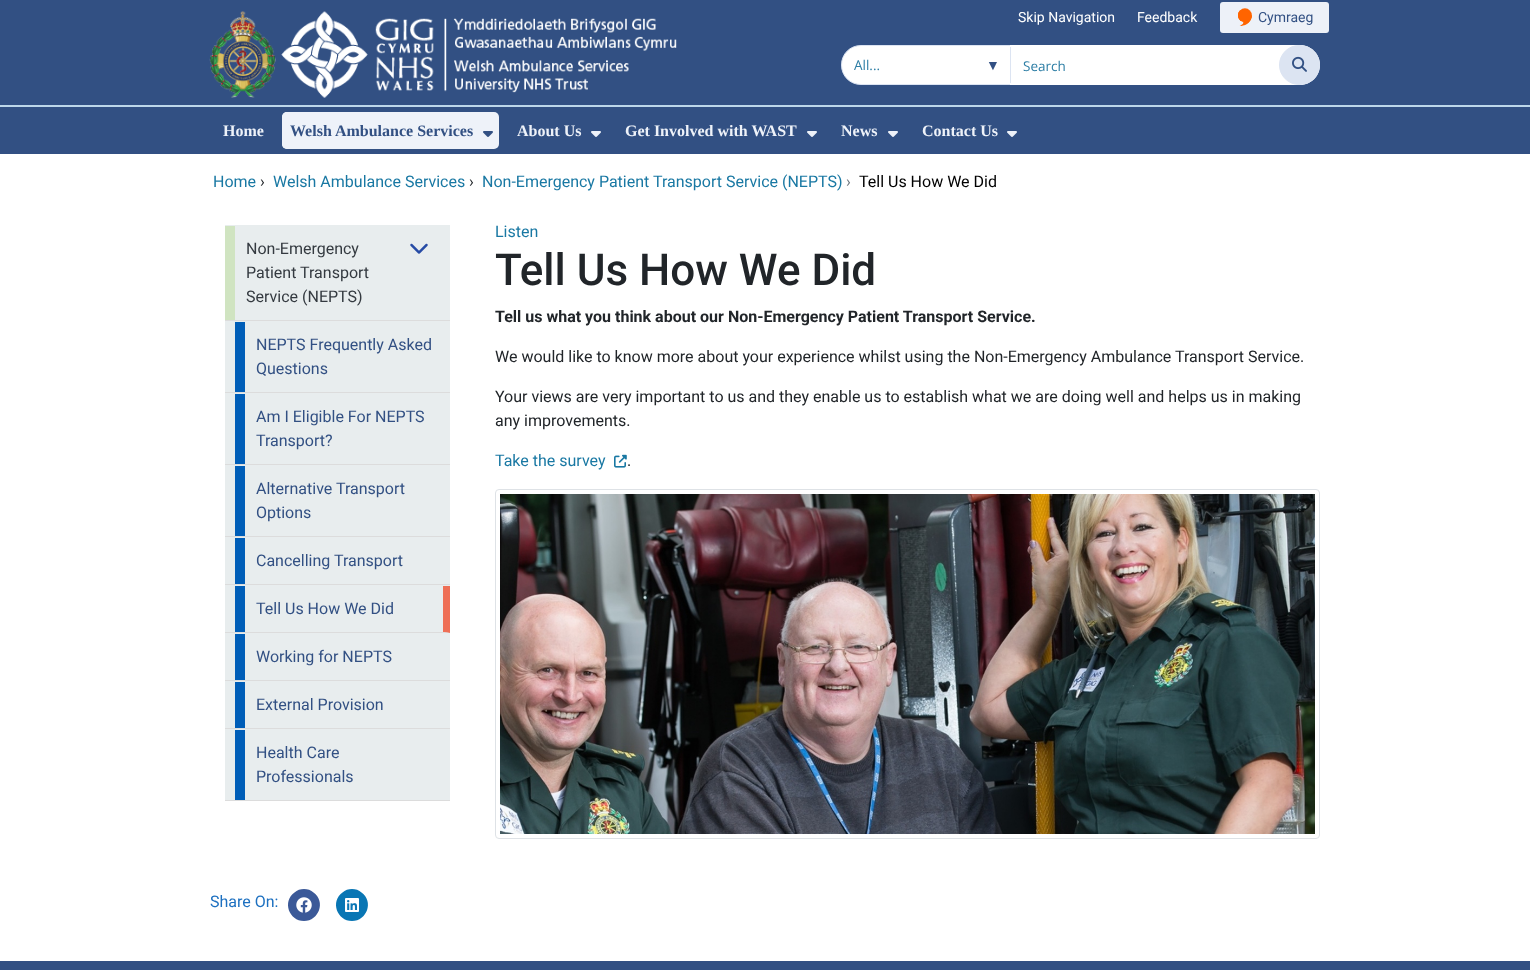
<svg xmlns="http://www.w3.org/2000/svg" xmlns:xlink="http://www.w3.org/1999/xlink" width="1530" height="970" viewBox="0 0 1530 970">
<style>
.cls-1{font:14px Roboto;fill:#ffffff}
.cls-2{font:14px Roboto;fill:#325083}
.cls-3{font:13.5px Open Sans;fill:#2d7ea5}
.cls-4{font:14px Liberation Sans;fill:#325083}
.cls-5{font:bold 16px Liberation Serif;fill:#eef2f9}
.cls-6{font:bold 16px Liberation Serif;fill:#325083}
.cls-7{font:16px Roboto;fill:#1978a3}
.cls-8{font:16px Roboto;fill:#212529}
.cls-9{font:16px Roboto;fill:#6c757d}
.cls-10{font:16px Roboto;fill:#000000}
.cls-11{font:16px Roboto;fill:#343a40}
.cls-12{font:16px Roboto;fill:#325083}
.cls-13{font:500 44px Roboto;fill:#212529}
.cls-14{font:bold 16px Roboto;fill:#212529}
.cls-15{font:16px Roboto;fill:#1d70c0}
</style>
<rect width="100%" height="100%" fill="#ffffff"/>
<rect fill="#325083" x="0" y="0" width="1530" height="105"/>
<rect fill="#bdd7ea" x="0" y="105" width="1530" height="2"/>
<rect fill="#edf1f8" x="1220" y="2" width="109" height="31" rx="3"/>
<image xlink:href="image0.png" x="1238" y="8" width="14" height="18"/>
<image xlink:href="image1.png" x="209" y="11" width="468" height="87"/>
<path fill="#ffffff" stroke="#dce4f2" d="M861 45.5H1010.5V84.5H861C850 84.5 841.5 76 841.5 65C841.5 54 850 45.5 861 45.5Z"/>
<path fill="#ffffff" d="M1010 45H1300C1311 45 1320 54 1320 65C1320 76 1311 85 1300 85H1010Z"/>
<rect fill="#dce4f2" x="1010" y="47" width="1" height="36"/>
<rect fill="#dce4f2" stroke="#dce4f2" x="1279.5" y="45.5" width="40" height="39" rx="19.5"/>
<image xlink:href="image2.png" x="1292" y="56" width="15" height="16"/>
<rect fill="#325083" x="0" y="107" width="1530" height="47"/>
<rect fill="#eef2f9" x="282" y="112" width="217" height="37" rx="5"/>
<rect fill="#eef2f9" x="282" y="112" width="191" height="37" rx="5"/>
<image xlink:href="image3.png" x="483" y="131" width="10" height="6"/>
<image xlink:href="image4.png" x="591" y="131" width="10" height="6"/>
<image xlink:href="image4.png" x="807" y="131" width="10" height="6"/>
<image xlink:href="image4.png" x="888" y="131" width="10" height="6"/>
<image xlink:href="image4.png" x="1007" y="131" width="10" height="6"/>
<rect fill="#e8edee" x="225" y="225" width="225" height="575"/>
<rect fill="#dcdcdc" x="225" y="320" width="225" height="1"/>
<rect fill="#d0e4c1" x="225" y="226" width="10" height="94"/>
<image xlink:href="image5.png" x="410" y="243" width="18" height="11"/>
<rect fill="#dcdcdc" x="225" y="392" width="225" height="1"/>
<rect fill="#005eb8" x="235" y="322" width="10" height="70"/>
<rect fill="#dcdcdc" x="225" y="464" width="225" height="1"/>
<rect fill="#005eb8" x="235" y="394" width="10" height="70"/>
<rect fill="#dcdcdc" x="225" y="536" width="225" height="1"/>
<rect fill="#005eb8" x="235" y="466" width="10" height="70"/>
<rect fill="#dcdcdc" x="225" y="584" width="225" height="1"/>
<rect fill="#005eb8" x="235" y="538" width="10" height="46"/>
<path fill="#ee6f56" d="M450 586V633L443 632V586Z"/>
<path fill="#dcdcdc" d="M450 633H225V632H443Z"/>
<rect fill="#005eb8" x="235" y="586" width="10" height="46"/>
<rect fill="#dcdcdc" x="225" y="680" width="225" height="1"/>
<rect fill="#005eb8" x="235" y="634" width="10" height="46"/>
<rect fill="#dcdcdc" x="225" y="728" width="225" height="1"/>
<rect fill="#005eb8" x="235" y="682" width="10" height="46"/>
<rect fill="#dcdcdc" x="225" y="800" width="225" height="1"/>
<rect fill="#005eb8" x="235" y="730" width="10" height="70"/>
<image xlink:href="image6.png" x="614" y="454" width="13" height="14"/>
<rect fill="none" stroke="#dee2e6" x="495.5" y="489.5" width="824" height="349" rx="3.5"/>
<image xlink:href="image7.png" x="500" y="494" width="815" height="340"/>
<path fill="#3b5998" d="M304 921C319 921 326 901.5 313.5 892.5C311 890 307.5 889 304 889C300.5 889 297 890 294.5 892.5C282 901.5 289 921 304 921Z"/>
<image xlink:href="image8.png" x="296" y="897" width="16" height="16"/>
<path fill="#0976b4" d="M352 921C367 921 374 901.5 361.5 892.5C359 890 355.5 889 352 889C348.5 889 345 890 342.5 892.5C330 901.5 337 921 352 921Z"/>
<image xlink:href="image9.png" x="345" y="898" width="14" height="14"/>
<rect fill="#325083" x="0" y="961" width="1530" height="9"/>
<text class="cls-1" x="1018" y="22">Skip Navigation</text>
<text class="cls-1" x="1137" y="22">Feedback</text>
<text class="cls-2" x="1258" y="22">Cymraeg</text>
<text class="cls-3" x="854" y="70">All...</text>
<text class="cls-4" x="986" y="70">▼</text>
<text class="cls-3" x="1023" y="71">Search</text>
<text class="cls-5" x="223" y="136">Home</text>
<text class="cls-6" x="290" y="136">Welsh Ambulance Services</text>
<text class="cls-5" x="517" y="136">About Us</text>
<text class="cls-5" x="625" y="136">Get Involved with WAST</text>
<text class="cls-5" x="841" y="136">News</text>
<text class="cls-5" x="922" y="136">Contact Us</text>
<text class="cls-7" x="213" y="187">Home</text>
<text class="cls-8" x="260" y="187">›</text>
<text class="cls-7" x="273" y="187">Welsh Ambulance Services</text>
<text class="cls-8" x="469" y="187">›</text>
<text class="cls-7" x="482" y="187">Non-Emergency Patient Transport Service (NEPTS)</text>
<text class="cls-9" x="846" y="187">›</text>
<text class="cls-10" x="859" y="187">Tell Us How We Did</text>
<text class="cls-11"><tspan x="246" y="254">Non-Emergency</tspan><tspan x="246" y="278">Patient Transport</tspan><tspan x="246" y="302">Service (NEPTS)</tspan></text>
<text class="cls-12"><tspan x="256" y="350">NEPTS Frequently Asked</tspan><tspan x="256" y="374">Questions</tspan></text>
<text class="cls-12"><tspan x="256" y="422">Am I Eligible For NEPTS</tspan><tspan x="256" y="446">Transport?</tspan></text>
<text class="cls-12"><tspan x="256" y="494">Alternative Transport</tspan><tspan x="256" y="518">Options</tspan></text>
<text class="cls-12" x="256" y="566">Cancelling Transport</text>
<text class="cls-12" x="256" y="614">Tell Us How We Did</text>
<text class="cls-12" x="256" y="662">Working for NEPTS</text>
<text class="cls-12" x="256" y="710">External Provision</text>
<text class="cls-12"><tspan x="256" y="758">Health Care</tspan><tspan x="256" y="782">Professionals</tspan></text>
<text class="cls-7" x="495" y="237">Listen</text>
<text class="cls-13" x="495" y="285">Tell Us How We Did</text>
<text class="cls-14" x="495" y="322">Tell us what you think about our Non-Emergency Patient Transport Service.</text>
<text class="cls-8" x="495" y="362">We would like to know more about your experience whilst using the Non-Emergency Ambulance Transport Service.</text>
<text class="cls-8"><tspan x="495" y="402">Your views are very important to us and they enable us to establish what we are doing well and helps us in making</tspan><tspan x="495" y="426">any improvements.</tspan></text>
<text class="cls-7" x="495" y="466">Take the survey</text>
<text class="cls-8" x="627" y="466">.</text>
<text class="cls-15" x="210" y="907">Share On:</text>
</svg>
